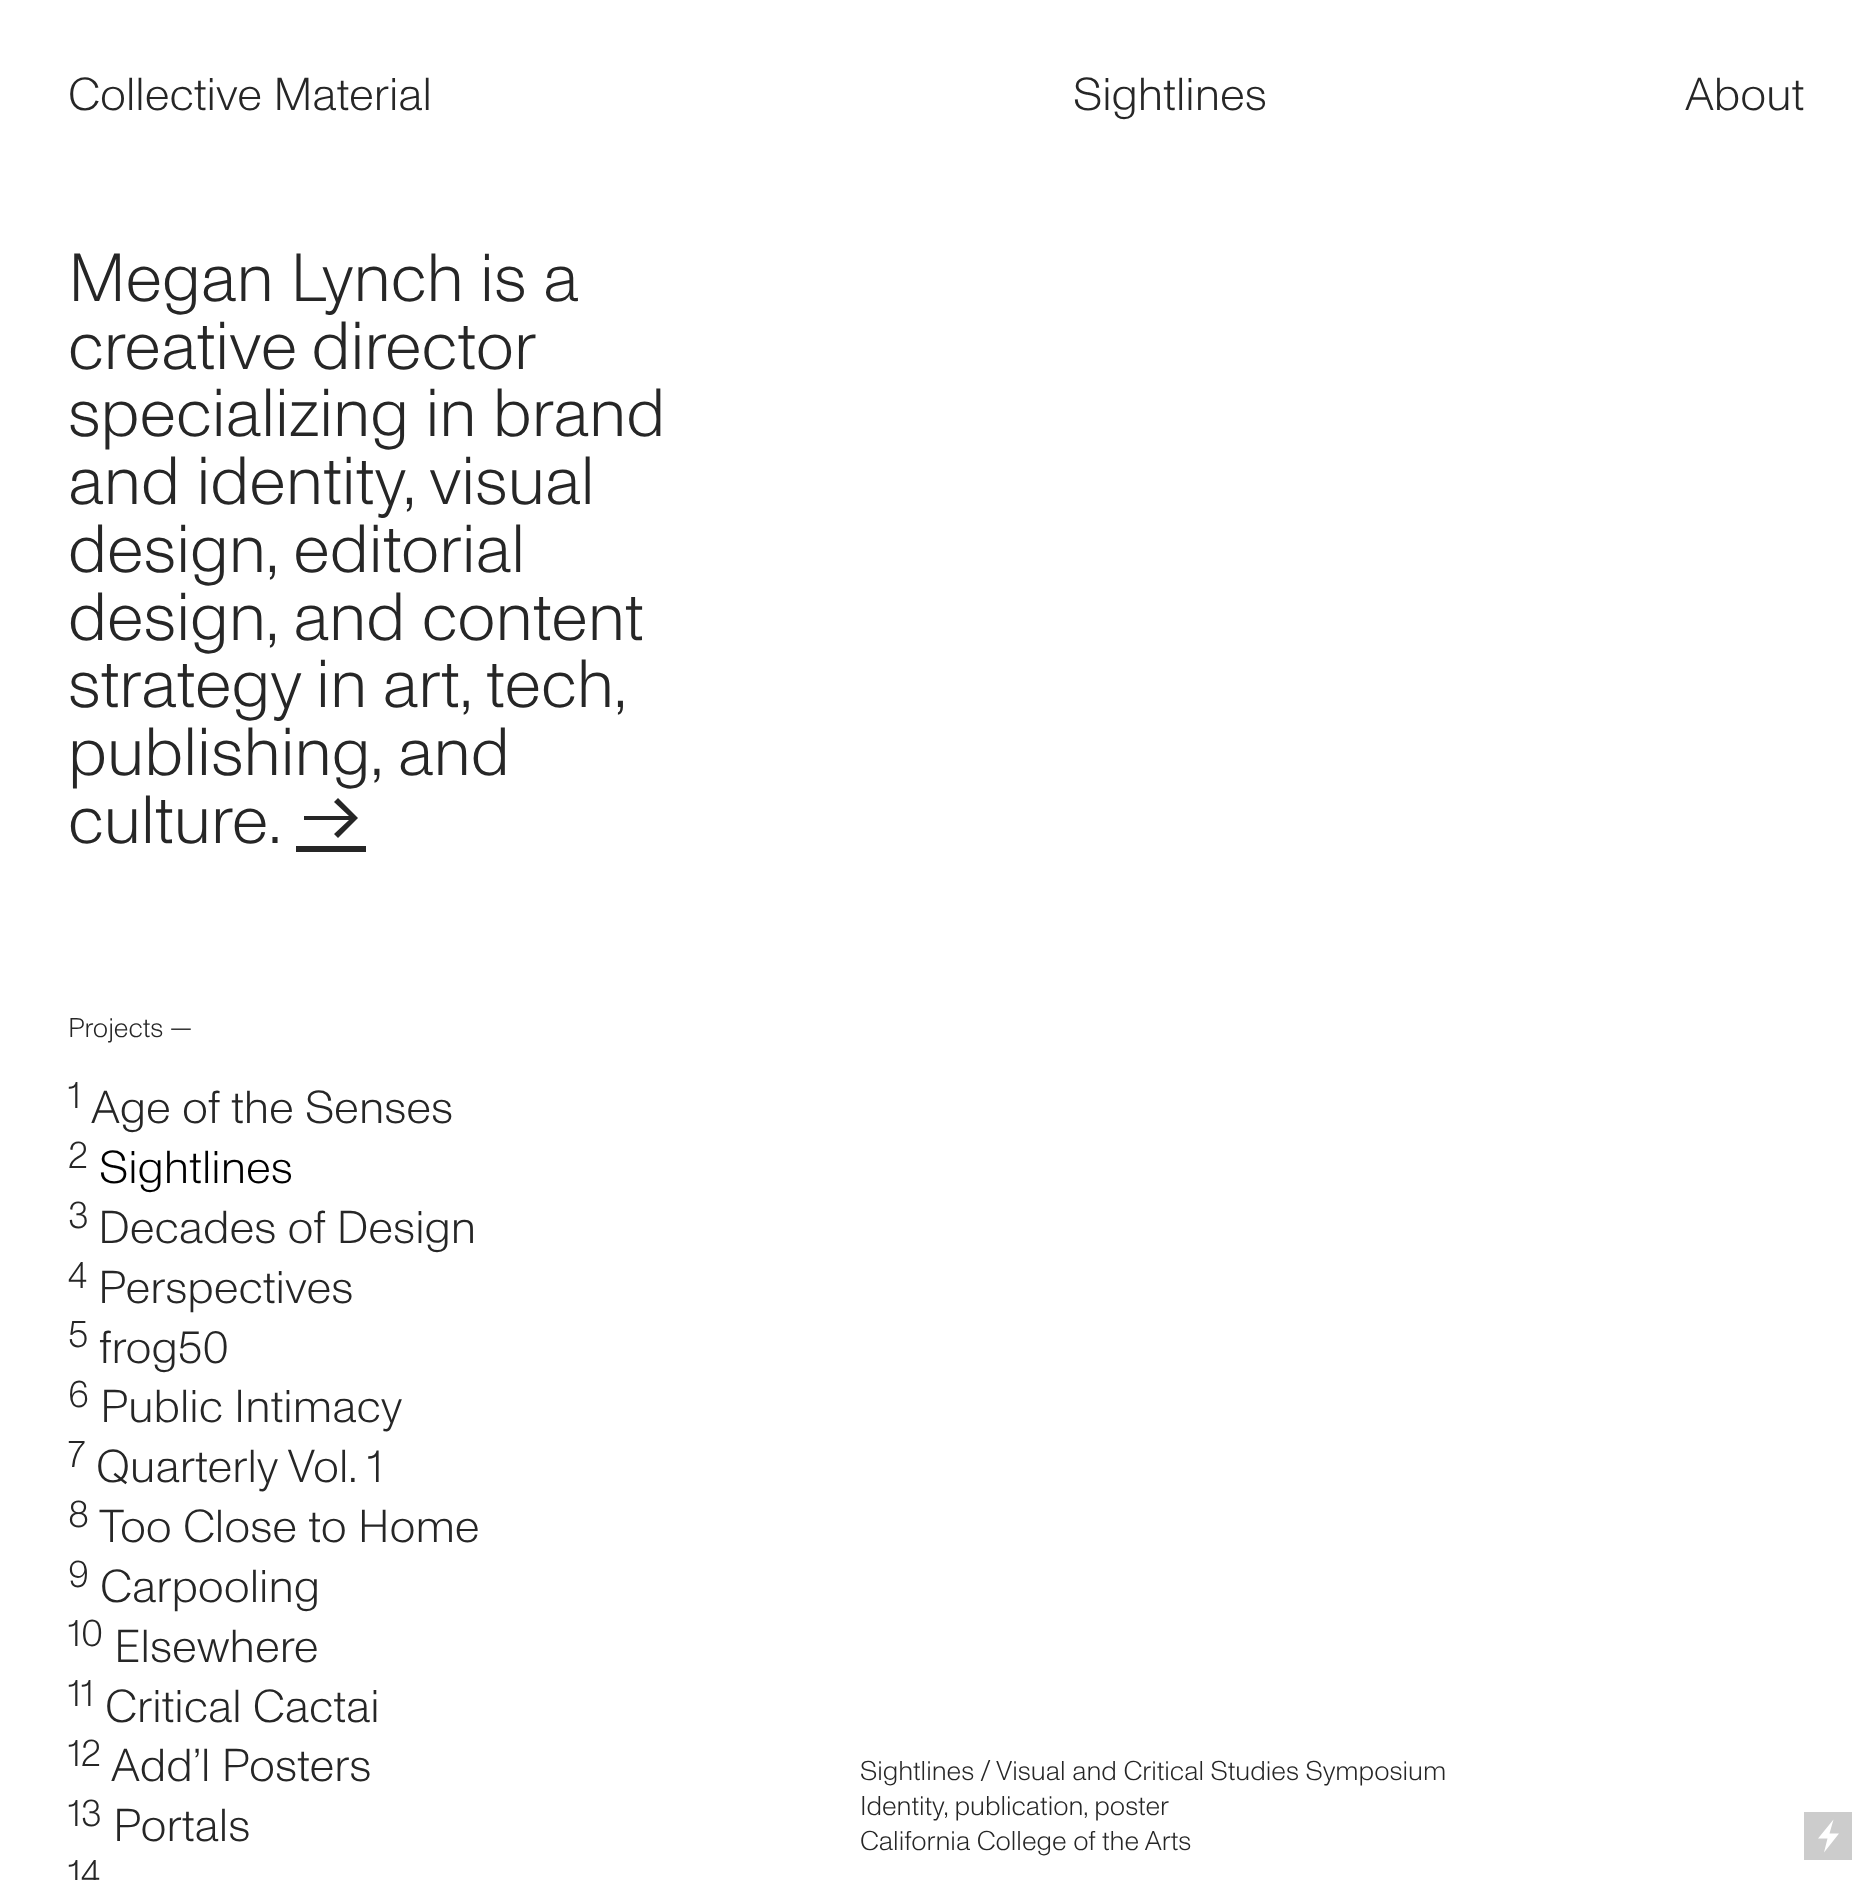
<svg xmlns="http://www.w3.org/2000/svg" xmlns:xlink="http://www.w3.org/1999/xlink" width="1872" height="1880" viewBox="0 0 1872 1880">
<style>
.cls-1{font:300 46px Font;fill:#262626}
.cls-2{font:300 67.75px Font;fill:#262626}
.cls-3{font:300 27.1px Font;fill:#262626}
.cls-4{font:300 38px Font;fill:#262626}
.cls-5{font:300 46px Font;fill:#000000}
</style>
<rect width="100%" height="100%" fill="#ffffff"/>
<path fill="#262626" d="M304 820H349L334 834L338 838L358 818L338 798L334 802L349 816H304Z"/>
<rect fill="#262626" x="296" y="846" width="70" height="6"/>
<rect fill="#cccccc" x="1804" y="1812" width="48" height="48"/>
<path fill="#ffffff" d="M1839 1833.5H1829.5L1833.5 1819.5L1818 1838.5H1827.5L1824 1852.5Z"/>
<text class="cls-1" x="68" y="110">Collective Material</text>
<text class="cls-2"><tspan x="68" y="301">Megan Lynch is a</tspan><tspan x="68" y="369" word-spacing="-2">creative director</tspan><tspan x="68" y="436">specializing in brand</tspan><tspan x="68" y="504">and identity, visual</tspan><tspan x="68" y="572">design, editorial</tspan><tspan x="68" y="640">design, and content</tspan><tspan x="68" y="707" word-spacing="-1">strategy in art, tech,</tspan><tspan x="68" y="775">publishing, and</tspan><tspan x="68" y="843">culture.</tspan></text>
<text class="cls-3" x="68" y="1037">Projects —</text>
<text class="cls-4" x="68" y="1108">1</text>
<text class="cls-1" x="91" y="1123">Age of the Senses</text>
<text class="cls-4" x="68" y="1168">2</text>
<text class="cls-5" x="99" y="1183">Sightlines</text>
<text class="cls-4" x="68" y="1228">3</text>
<text class="cls-1" x="98" y="1243">Decades of Design</text>
<text class="cls-4" x="68" y="1288">4</text>
<text class="cls-1" x="98" y="1303">Perspectives</text>
<text class="cls-4" x="68" y="1347">5</text>
<text class="cls-1" x="99" y="1363">frog50</text>
<text class="cls-4" x="68" y="1407">6</text>
<text class="cls-1" x="100" y="1422">Public Intimacy</text>
<text class="cls-4" x="68" y="1467">7</text>
<text class="cls-1" x="96" y="1482">Quarterly Vol. 1</text>
<text class="cls-4" x="68" y="1527">8</text>
<text class="cls-1" x="99" y="1542">Too Close to Home</text>
<text class="cls-4" x="68" y="1587">9</text>
<text class="cls-1" x="100" y="1602">Carpooling</text>
<text class="cls-4" x="68" y="1646">10</text>
<text class="cls-1" x="114" y="1662">Elsewhere</text>
<text class="cls-4" x="68" y="1706">11</text>
<text class="cls-1" x="105" y="1722">Critical Cactai</text>
<text class="cls-4" x="68" y="1766">12</text>
<text class="cls-1" x="111" y="1781">Add’l Posters</text>
<text class="cls-4" x="68" y="1826">13</text>
<text class="cls-1" x="113" y="1841">Portals</text>
<text class="cls-4" x="68" y="1886">14</text>
<text class="cls-1" x="1685" y="110">About</text>
<text class="cls-1" x="1073" y="110">Sightlines</text>
<text class="cls-3" x="860" y="1780">Sightlines /</text>
<text class="cls-3" x="996" y="1780">Visual and Critical Studies Symposium</text>
<text class="cls-3"><tspan x="860" y="1815">Identity, publication, poster</tspan><tspan x="860" y="1850">California College of the Arts</tspan></text>
</svg>
